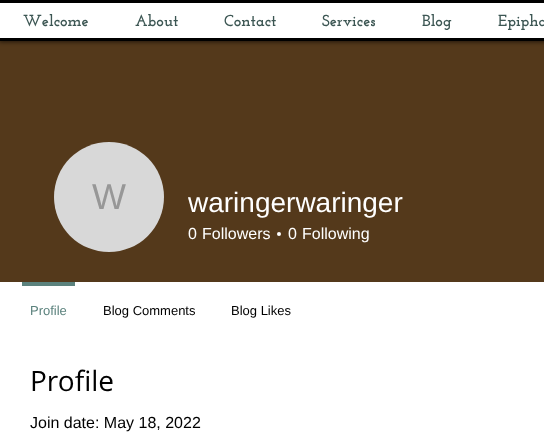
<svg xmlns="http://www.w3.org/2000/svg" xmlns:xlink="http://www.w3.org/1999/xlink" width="544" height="435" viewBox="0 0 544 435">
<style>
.cls-1{font:bold 16px Josefin Slab;fill:#3c5653}
.cls-2{font:36px Liberation Sans;fill:#979797}
.cls-3{font:28px Liberation Sans;fill:#ffffff}
.cls-4{font:16px Liberation Sans;fill:#ffffff}
.cls-5{font:13px Liberation Sans;fill:#5b827d}
.cls-6{font:13px Liberation Sans;fill:#000000}
.cls-7{font:28px Open Sans;fill:#000000}
.cls-8{font:16px Liberation Sans;fill:#000000}
</style>
<rect width="100%" height="100%" fill="#ffffff"/>
<rect fill="#54391b" x="0" y="41" width="544" height="241"/>
<rect fill="#000000" fill-opacity="0.6" filter="blur(2px)" x="-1" y="1" width="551" height="41"/>
<rect fill="#ffffff" x="0" y="3" width="544" height="35"/>
<rect fill="#000000" x="0" y="0" width="544" height="3"/>
<rect fill="#000000" x="0" y="38" width="544" height="3"/>
<circle fill="#d8d8d8" cx="109" cy="197" r="55"/>
<circle fill="#ffffff" cx="279" cy="234" r="2"/>
<rect fill="#5b827d" x="22" y="282" width="53" height="4"/>
<text class="cls-1" x="23" y="26">Welcome</text>
<text class="cls-1" x="135" y="26">About</text>
<text class="cls-1" x="224" y="26">Contact</text>
<text class="cls-1" x="322" y="26">Services</text>
<text class="cls-1" x="422" y="26">Blog</text>
<text class="cls-1" x="498" y="26">Epipha</text>
<text class="cls-2" x="92" y="209">W</text>
<text class="cls-3" x="188" y="212">waringerwaringer</text>
<text class="cls-4" x="188" y="239">0</text>
<text class="cls-4" x="202" y="239">Followers</text>
<text class="cls-4" x="288" y="239">0</text>
<text class="cls-4" x="302" y="239">Following</text>
<text class="cls-5" x="30" y="315">Profile</text>
<text class="cls-6" x="103" y="315">Blog Comments</text>
<text class="cls-6" x="231" y="315">Blog Likes</text>
<text class="cls-7" x="30" y="391">Profile</text>
<text class="cls-8" x="30" y="428">Join date: May 18, 2022</text>
</svg>
